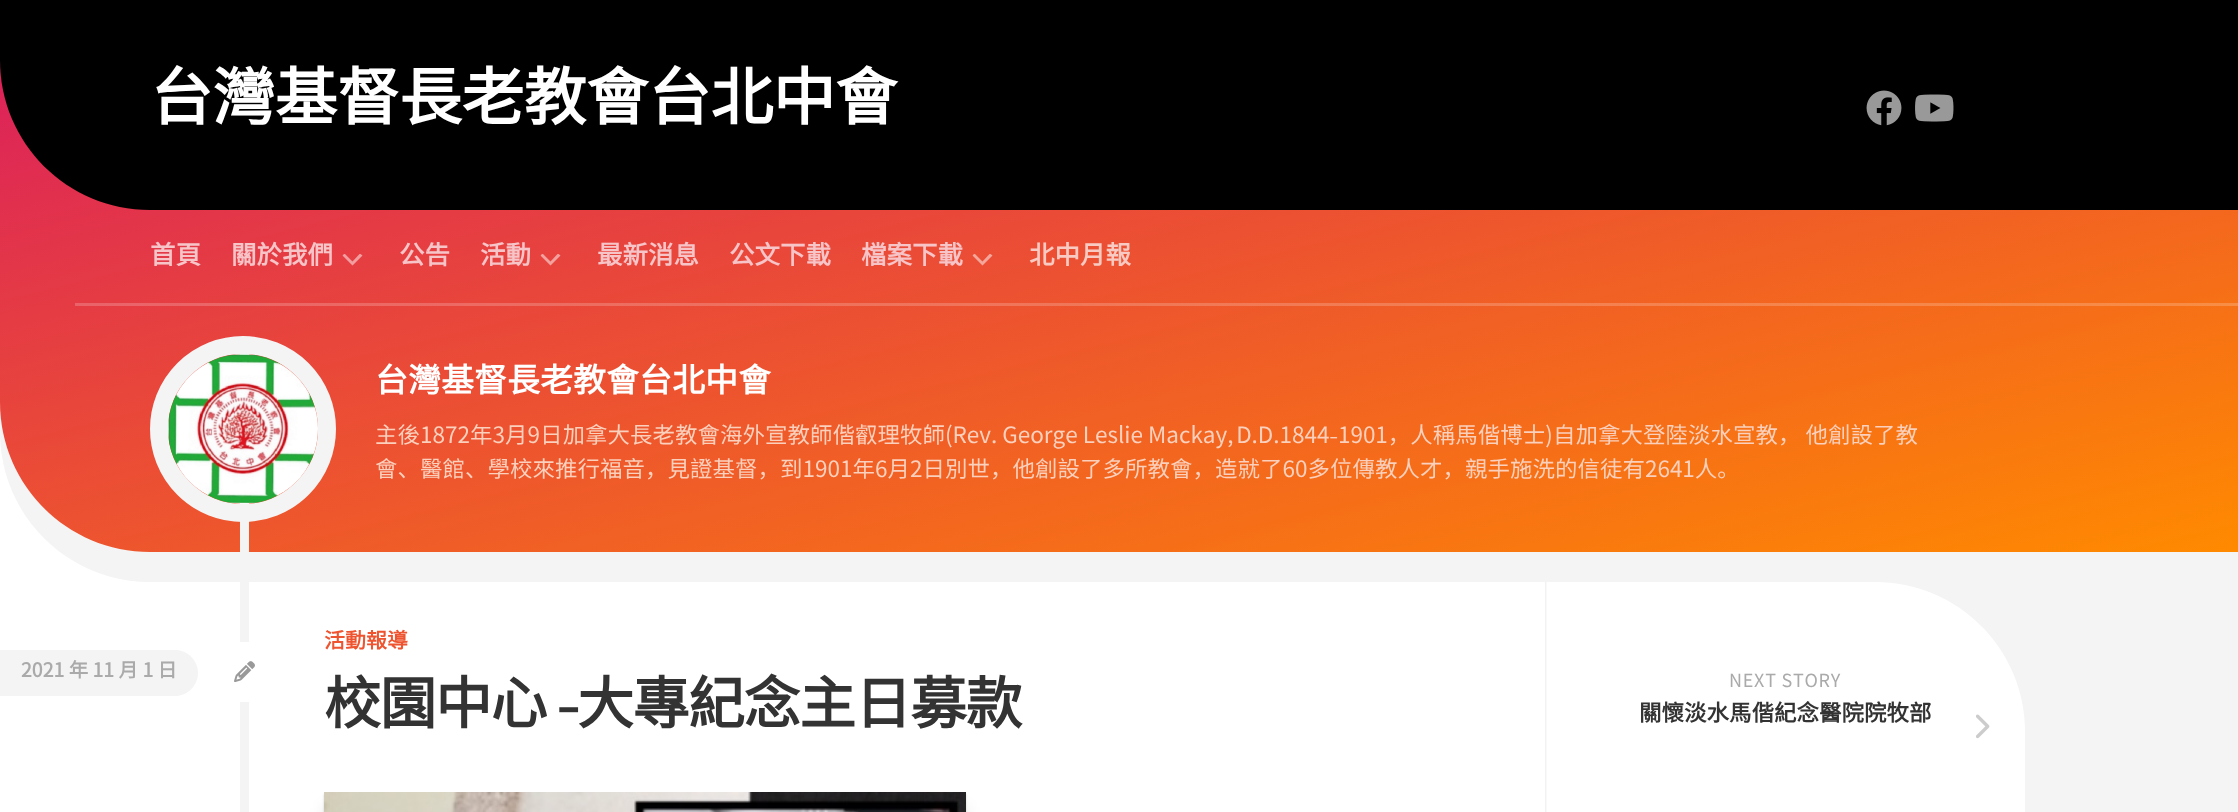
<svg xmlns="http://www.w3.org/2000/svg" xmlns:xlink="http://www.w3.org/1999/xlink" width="2238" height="812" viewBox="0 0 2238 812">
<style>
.cls-1{font:bold 63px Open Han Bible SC;letter-spacing:-0.75px;fill:#ffffff}
.cls-2{font:bold 25.5px Open Han Bible SC;fill:#f7c4c8}
.cls-3{font:bold 25.5px Open Han Bible SC;fill:#f9cac2}
.cls-4{font:bold 33px Open Han Bible SC;fill:#ffffff}
.cls-5{font:300 22.5px Open Han Bible SC;fill:#fbd0bd}
.cls-6{font:bold 21px Open Han Bible SC;fill:#ed542f}
.cls-7{font:bold 19.5px Open Han Bible SC;fill:#aaaaaa}
.cls-8{font:bold 57px Open Han Bible SC;letter-spacing:-1.5px;fill:#333333}
.cls-9{font:300 18px Open Han Bible SC;letter-spacing:0.75px;fill:#aaaaaa}
.cls-10{font:bold 22.5px Open Han Bible SC;fill:#333333}
</style>
<defs>
<linearGradient id="g1" gradientUnits="userSpaceOnUse" x1="1247" y1="796" x2="991" y2="-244"><stop offset="0" stop-color="#ff8a00"/><stop offset="1" stop-color="#da1b60"/></linearGradient>
<linearGradient id="g2" gradientUnits="userSpaceOnUse" x1="1247" y1="796" x2="991" y2="-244"><stop offset="0" stop-color="#ffa133"/><stop offset="1" stop-color="#e14980"/></linearGradient>
<clipPath id="clip1"><rect x="342" y="254" width="21" height="12"/></clipPath>
<clipPath id="clip2"><rect x="540" y="254" width="21" height="12"/></clipPath>
<clipPath id="clip3"><rect x="972" y="254" width="21" height="12"/></clipPath>
</defs>
<rect width="100%" height="100%" fill="#ffffff"/>
<path fill="#f4f4f4" d="M0 0H2238V582H150C67 582 0 515 0 432Z"/>
<path fill="url(#g1)" d="M0 0H2238V552H150C67 552 0 485 0 402Z"/>
<rect fill="url(#g2)" x="75" y="303" width="2163" height="3"/>
<path fill="#000000" d="M0 0H2238V210H150C67 210 0 143 0 60Z"/>
<image xlink:href="image0.png" x="1866" y="90" width="36" height="36"/>
<image xlink:href="image1.png" x="1915" y="94" width="39" height="28"/>
<g clip-path="url(#clip1)">
<path fill="#f29ea0" fill-rule="evenodd" d="M352.5 261.5L360 253.5L362.5 255.5L352.5 265.5L342.5 255.5L344.5 253.5Z"/>
</g>
<g clip-path="url(#clip2)">
<path fill="#f3a19e" fill-rule="evenodd" d="M550.5 261.5L558 253.5L560.5 255.5L550.5 265.5L540.5 255.5L542.5 253.5Z"/>
</g>
<g clip-path="url(#clip3)">
<path fill="#f5a69a" fill-rule="evenodd" d="M982.5 261.5L990 253.5L992.5 255.5L982.5 265.5L972.5 255.5L974.5 253.5Z"/>
</g>
<rect fill="#f4f4f4" x="1876" y="582" width="362" height="230"/>
<path fill="#ffffff" d="M0 582H1875C1958 582 2025 649 2025 732V812C2025 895 1958 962 1875 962H0Z"/>
<rect fill="#f4f4f4" x="240" y="354" width="9" height="458"/>
<circle fill="none" stroke="#f4f4f4" stroke-width="18" cx="243" cy="429" r="84"/>
<image xlink:href="image2.png" x="168" y="354" width="150" height="150"/>
<image xlink:href="image3.png" x="1545" y="582" width="2" height="230"/>
<path fill="#f4f4f4" d="M0 650H175C187.5 650 198 660.5 198 673C198 685.5 187.5 696 175 696H0Z"/>
<rect fill="#ffffff" x="215" y="642" width="60" height="60" rx="15"/>
<image xlink:href="image4.png" x="234" y="661" width="21" height="21"/>
<rect fill="#000000" fill-opacity="0.1" filter="blur(7.5px)" x="324" y="807" width="642" height="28"/>
<rect fill="#000000" fill-opacity="0.15" filter="blur(1px)" x="324" y="794" width="642" height="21"/>
<image xlink:href="image5.png" x="324" y="792" width="642" height="20"/>
<image xlink:href="image6.png" x="1976" y="714" width="14" height="25"/>
<text class="cls-1" x="150" y="120">台灣基督長老教會台北中會</text>
<text class="cls-2" x="150" y="264">首頁</text>
<text class="cls-2" x="231" y="264">關於我們</text>
<text class="cls-2" x="399" y="264">公告</text>
<text class="cls-2" x="480" y="264">活動</text>
<text class="cls-2" x="597" y="264">最新消息</text>
<text class="cls-2" x="729" y="264">公文下載</text>
<text class="cls-2" x="861" y="264">檔案下載</text>
<text class="cls-3" x="1029" y="264">北中月報</text>
<text class="cls-4" x="375" y="392">台灣基督長老教會台北中會</text>
<text class="cls-5"><tspan x="375" y="443">主後1872年3月9日加拿大長老教會海外宣教師偕叡理牧師(Rev. George Leslie Mackay, D.D.1844-1901，人稱馬偕博士)自加拿大登陸淡水宣教， 他創設了教</tspan><tspan x="375" y="477">會、醫館、學校來推行福音，見證基督，到1901年6月2日別世，他創設了多所教會，造就了60多位傳教人才，親手施洗的信徒有2641人。</tspan></text>
<text class="cls-6" x="324" y="648">活動報導</text>
<text class="cls-7" x="21" y="677">2021 年 11 月 1 日</text>
<text class="cls-8" x="324" y="724">校園中心 -大專紀念主日募款</text>
<text class="cls-9" x="1729" y="687">NEXT STORY</text>
<text class="cls-10" x="1639" y="721">關懷淡水馬偕紀念醫院院牧部</text>
</svg>
